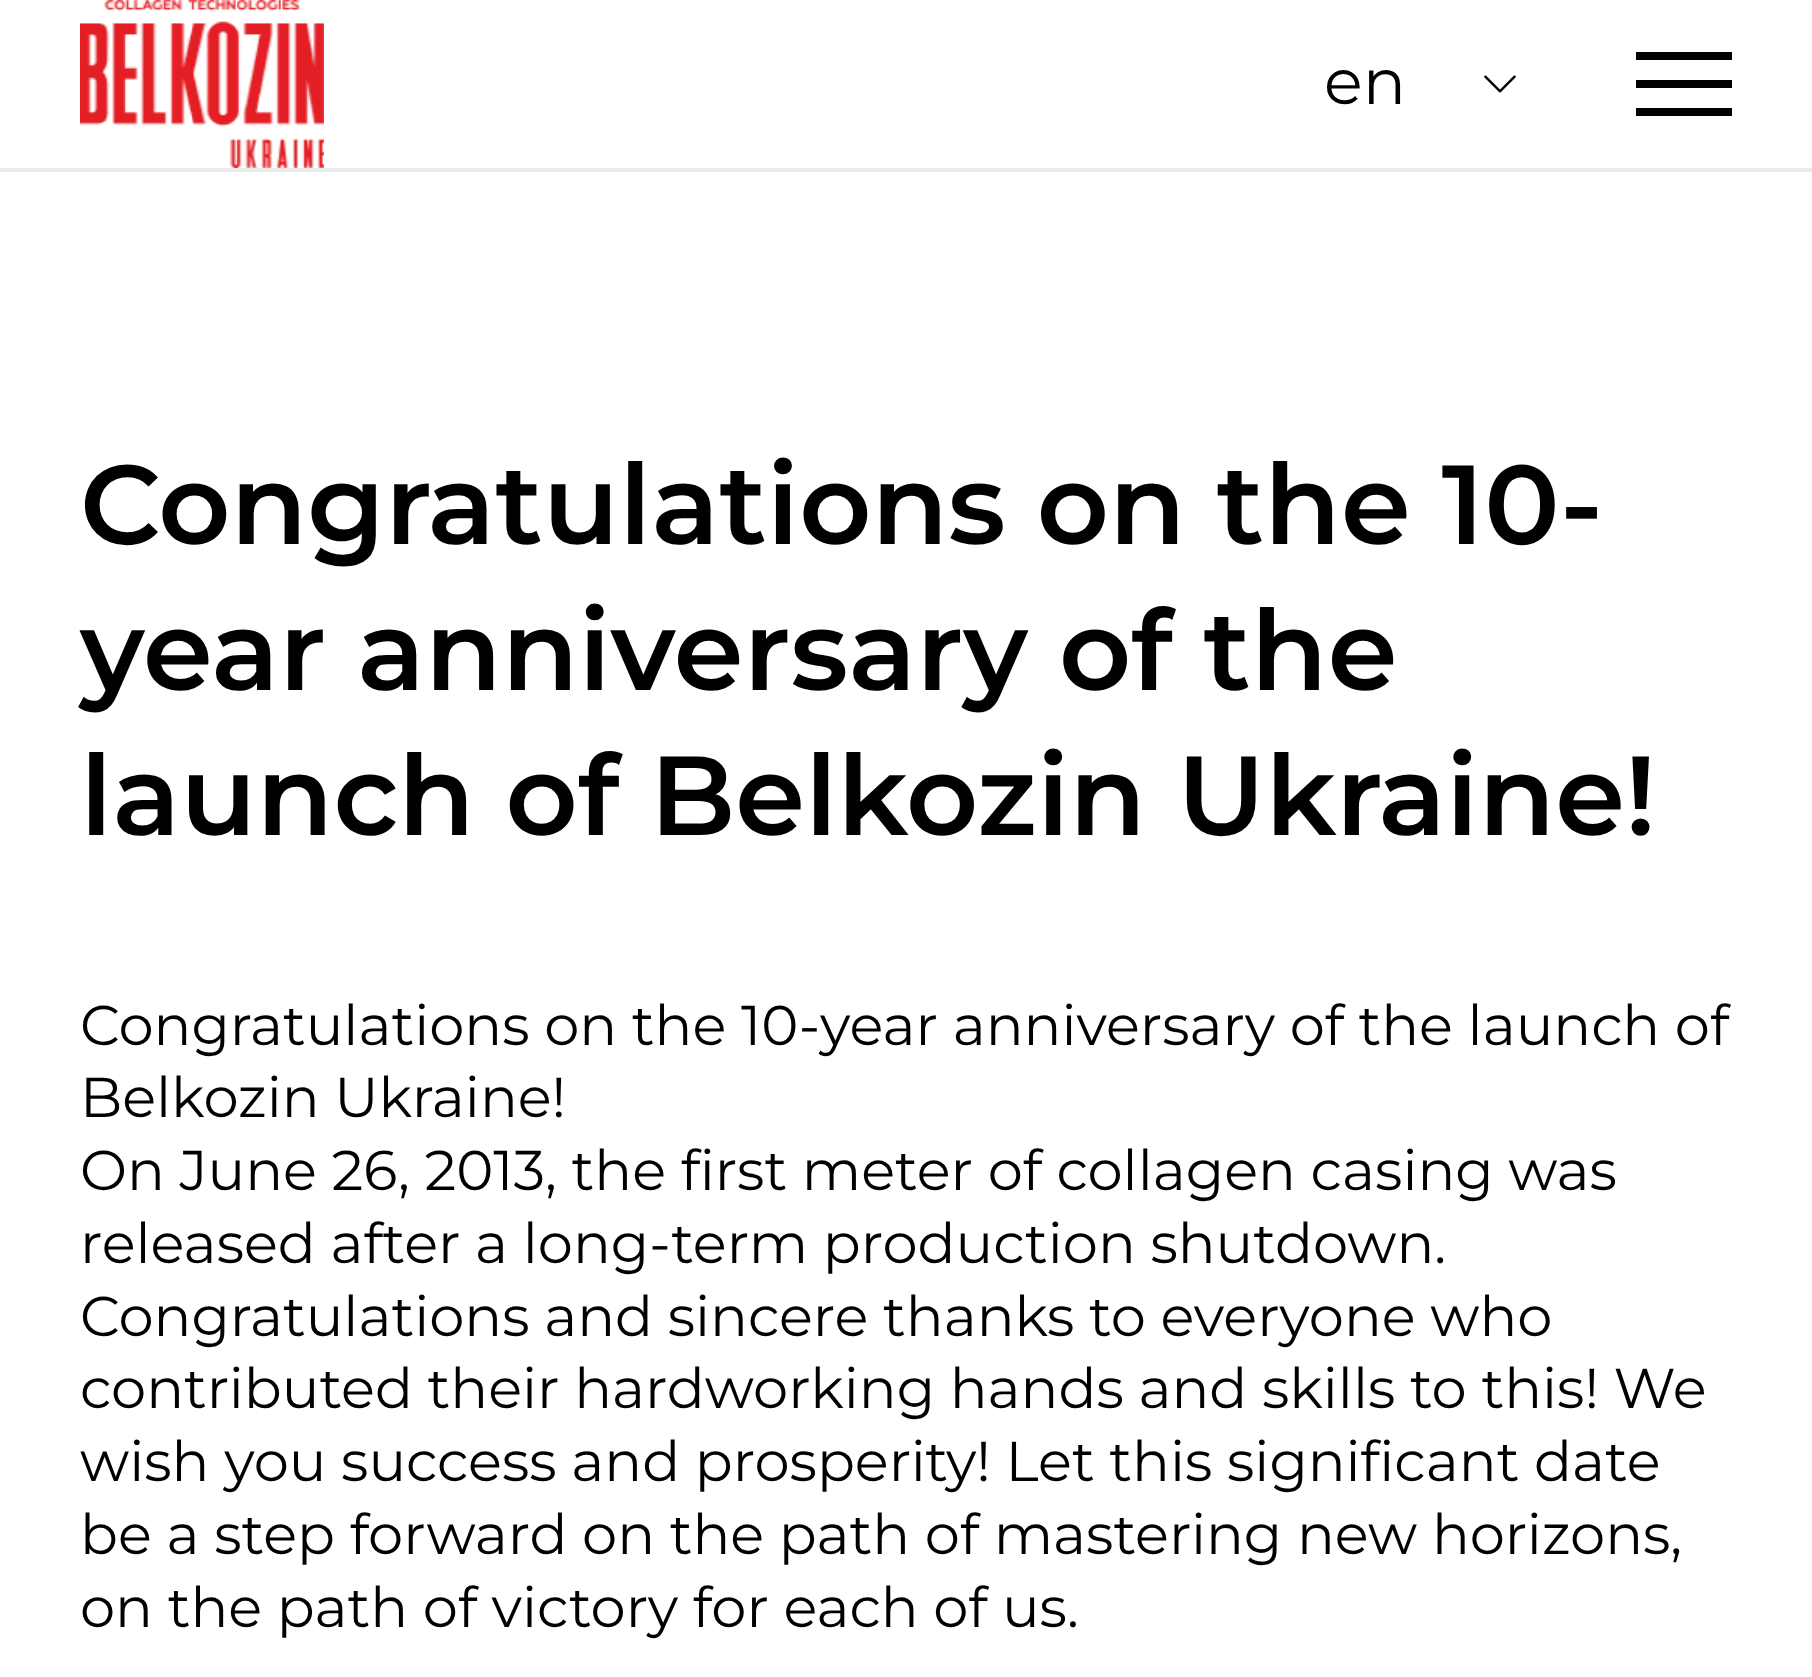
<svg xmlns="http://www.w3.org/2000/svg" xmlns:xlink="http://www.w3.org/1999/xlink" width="1812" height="1677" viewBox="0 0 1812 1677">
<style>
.cls-1{font:64px Montserrat;fill:#000000}
.cls-2{font:600 112px Montserrat;fill:#000000}
.cls-3{font:56px Montserrat;fill:#000000}
</style>
<rect width="100%" height="100%" fill="#ffffff"/>
<rect fill="#eaeaea" x="0" y="168" width="1812" height="4"/>
<image xlink:href="image0.png" x="80" y="0" width="244" height="168"/>
<image xlink:href="image1.png" x="1484" y="75" width="32" height="18"/>
<rect fill="#000000" x="1636" y="52" width="96" height="8"/>
<rect fill="#000000" x="1636" y="80" width="96" height="8"/>
<rect fill="#000000" x="1636" y="108" width="96" height="8"/>
<text class="cls-1" x="1324" y="104">en</text>
<text class="cls-2"><tspan x="80" y="544">Congratulations on the 10-</tspan><tspan x="80" y="690">year anniversary of the</tspan><tspan x="80" y="835">launch of Belkozin Ukraine!</tspan></text>
<text class="cls-3"><tspan x="80" y="1045">Congratulations on the 10-year anniversary of the launch of</tspan><tspan x="80" y="1117">Belkozin Ukraine!</tspan><tspan x="80" y="1190">On June 26, 2013, the first meter of collagen casing was</tspan><tspan x="80" y="1263">released after a long-term production shutdown.</tspan><tspan x="80" y="1336">Congratulations and sincere thanks to everyone who</tspan><tspan x="80" y="1408">contributed their hardworking hands and skills to this! We</tspan><tspan x="80" y="1481">wish you success and prosperity! Let this significant date</tspan><tspan x="80" y="1554">be a step forward on the path of mastering new horizons,</tspan><tspan x="80" y="1627">on the path of victory for each of us.</tspan></text>
</svg>
